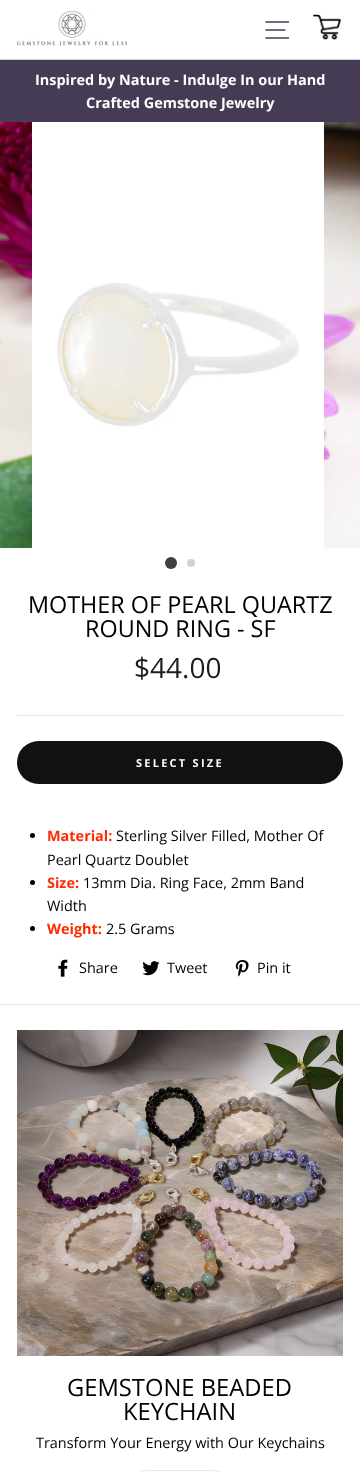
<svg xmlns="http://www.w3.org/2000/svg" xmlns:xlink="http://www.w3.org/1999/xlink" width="360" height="1472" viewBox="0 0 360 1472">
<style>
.cls-1{font:bold 14.45px Open Sans;fill:#ffffff}
.cls-2{font:23.4px Open Sans;fill:#000000}
.cls-3{font:28px Open Sans;fill:#1c1d1d}
.cls-4{font:bold 11px Open Sans;letter-spacing:2.25px;fill:#ffffff}
.cls-5{font:bold 14.45px Open Sans;fill:#ff2a00}
.cls-6{font:14.45px Open Sans;fill:#000000}
.cls-7{font:23.75px Open Sans;fill:#000000}
</style>
<rect width="100%" height="100%" fill="#ffffff"/>
<image xlink:href="image0.png" x="17" y="11" width="110" height="36"/>
<path fill="none" stroke="#463b55" stroke-width="1.4" d="M265.5 22H289M265.5 30H285.5M265.5 38H289"/>
<image xlink:href="image1.png" x="313" y="14" width="28" height="26"/>
<rect fill="#d3d3d3" x="0" y="59" width="360" height="1"/>
<rect fill="#463b55" x="0" y="60" width="360" height="62"/>
<image xlink:href="image2.png" x="0" y="122" width="32" height="426"/>
<image xlink:href="image3.png" x="56" y="282" width="244" height="145"/>
<image xlink:href="image4.png" x="324" y="122" width="36" height="426"/>
<circle fill="#404040" cx="171" cy="563" r="6"/>
<circle fill="#d1d1d1" cx="191" cy="563" r="4"/>
<rect fill="#e8e8e1" x="17" y="715" width="326" height="1"/>
<rect fill="#111111" x="17" y="741" width="326" height="43" rx="21.5"/>
<circle fill="#000000" cx="32.5" cy="835.5" r="2.5"/>
<circle fill="#000000" cx="32.5" cy="882.5" r="2.5"/>
<circle fill="#000000" cx="32.5" cy="928.5" r="2.5"/>
<image xlink:href="image5.png" x="58" y="959" width="10" height="18"/>
<image xlink:href="image6.png" x="142" y="961" width="18" height="15"/>
<image xlink:href="image7.png" x="235" y="960" width="14" height="17"/>
<rect fill="#e8e8e1" x="0" y="1004" width="360" height="1"/>
<image xlink:href="image8.png" x="17" y="1030" width="326" height="326"/>
<rect fill="none" stroke="#e8e8e1" x="135.5" y="1470.5" width="89" height="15" rx="12.5"/>
<text class="cls-1" x="35" y="85">Inspired by Nature - Indulge In our Hand</text>
<text class="cls-1" x="86" y="108">Crafted Gemstone Jewelry</text>
<text class="cls-2" x="28" y="613">MOTHER OF PEARL QUARTZ</text>
<text class="cls-2" x="85" y="637">ROUND RING - SF</text>
<text class="cls-3" x="134" y="678">$44.00</text>
<text class="cls-4" x="136" y="767">SELECT SIZE</text>
<text class="cls-5" x="47" y="841">Material:</text>
<text class="cls-6" x="116" y="841">Sterling Silver Filled, Mother Of</text>
<text class="cls-6" x="47" y="865">Pearl Quartz Doublet</text>
<text class="cls-5" x="47" y="888">Size:</text>
<text class="cls-6" x="83" y="888">13mm Dia. Ring Face, 2mm Band</text>
<text class="cls-6" x="47" y="911">Width</text>
<text class="cls-5" x="47" y="934">Weight:</text>
<text class="cls-6" x="106" y="934">2.5 Grams</text>
<text class="cls-6" x="79" y="973">Share</text>
<text class="cls-6" x="167" y="973">Tweet</text>
<text class="cls-6" x="257" y="973">Pin it</text>
<text class="cls-7" x="67" y="1396">GEMSTONE BEADED</text>
<text class="cls-7" x="123" y="1420">KEYCHAIN</text>
<text class="cls-6" x="36" y="1448">Transform Your Energy with Our Keychains</text>
</svg>
